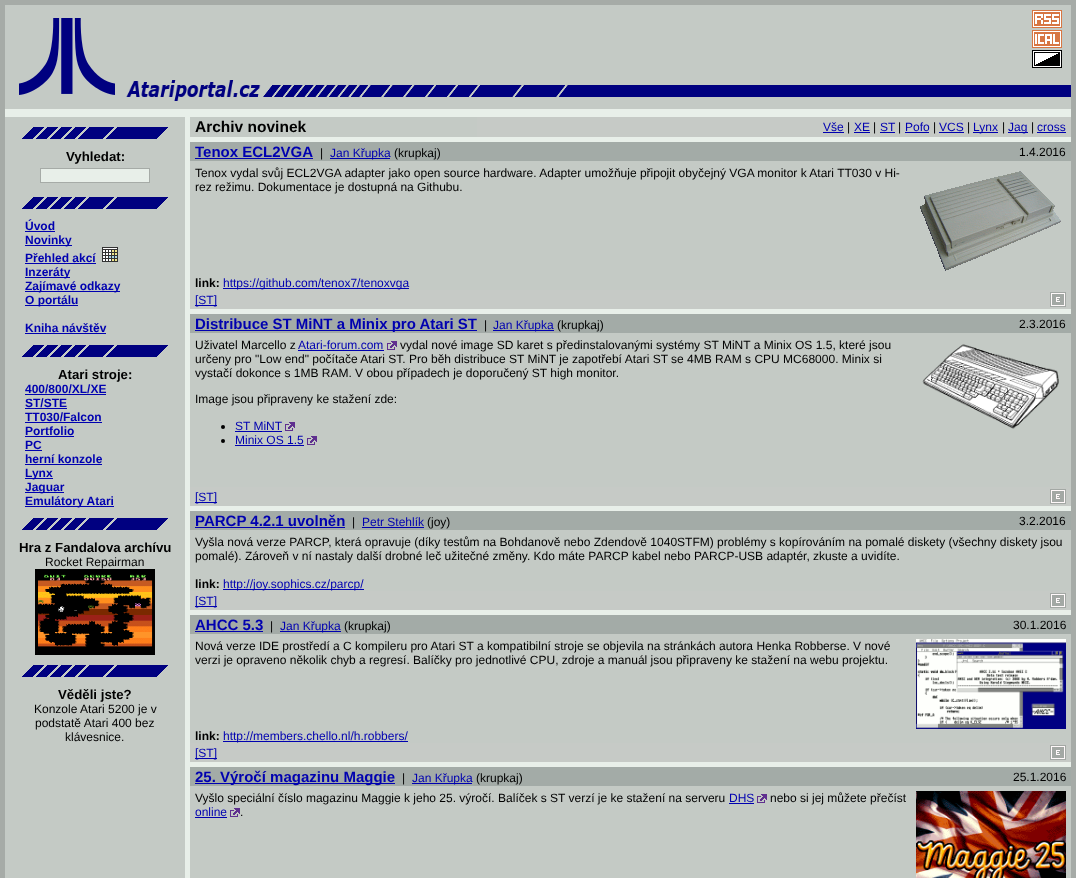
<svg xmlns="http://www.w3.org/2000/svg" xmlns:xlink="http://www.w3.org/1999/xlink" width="1076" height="878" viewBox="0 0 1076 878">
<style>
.cls-1{font:bold 13.25px Liberation Sans;fill:#000000}
.cls-2{font:bold 12px Liberation Sans;fill:#0000b0}
.cls-3{font:12px Liberation Sans;fill:#000000}
.cls-4{font:bold 15.5px Liberation Sans;fill:#000000}
.cls-5{font:12px Liberation Sans;fill:#0000b0}
.cls-6{font:bold 15px Liberation Sans;fill:#0000b0}
.cls-7{font:bold 12px Liberation Sans;fill:#000000}
</style>
<rect width="100%" height="100%" fill="#a6aba7"/>
<rect fill="#c4cac5" x="5" y="5" width="120" height="104"/>
<image xlink:href="image0.png" x="19" y="18" width="96" height="77"/>
<rect fill="#c4cac5" x="125" y="5" width="946" height="64"/>
<image xlink:href="image1.png" x="1032" y="10" width="30" height="18"/>
<image xlink:href="image2.png" x="1032" y="30" width="30" height="18"/>
<image xlink:href="image3.png" x="1032" y="50" width="30" height="18"/>
<rect fill="#c4cac5" x="125" y="69" width="946" height="40"/>
<image xlink:href="image4.png" x="126" y="80" width="468" height="21"/>
<rect fill="#000080" x="594" y="85" width="477" height="12"/>
<rect fill="#e8efe9" x="5" y="109" width="1066" height="8"/>
<rect fill="#e8efe9" x="185" y="117" width="886" height="761"/>
<rect fill="#c4cac5" x="5" y="117" width="180" height="761"/>
<image xlink:href="image5.png" x="22" y="127" width="146" height="12"/>
<rect fill="#e8efe9" stroke="#a6aba7" x="40.5" y="168.5" width="109" height="14"/>
<image xlink:href="image5.png" x="22" y="197" width="146" height="12"/>
<rect fill="#0000b0" x="25" y="231" width="30" height="1"/>
<rect fill="#0000b0" x="25" y="245" width="47" height="1"/>
<rect fill="#0000b0" x="25" y="263" width="71" height="1"/>
<image xlink:href="image6.png" x="102" y="247" width="16" height="15"/>
<rect fill="#0000b0" x="25" y="277" width="45" height="1"/>
<rect fill="#0000b0" x="25" y="291" width="95" height="1"/>
<rect fill="#0000b0" x="25" y="305" width="53" height="1"/>
<rect fill="#0000b0" x="25" y="333" width="81" height="1"/>
<image xlink:href="image5.png" x="22" y="345" width="146" height="12"/>
<rect fill="#0000b0" x="25" y="394" width="81" height="1"/>
<rect fill="#0000b0" x="25" y="408" width="42" height="1"/>
<rect fill="#0000b0" x="25" y="422" width="77" height="1"/>
<rect fill="#0000b0" x="25" y="436" width="49" height="1"/>
<rect fill="#0000b0" x="25" y="450" width="17" height="1"/>
<rect fill="#0000b0" x="25" y="464" width="77" height="1"/>
<rect fill="#0000b0" x="25" y="478" width="28" height="1"/>
<rect fill="#0000b0" x="25" y="492" width="39" height="1"/>
<rect fill="#0000b0" x="25" y="506" width="89" height="1"/>
<image xlink:href="image5.png" x="22" y="518" width="146" height="12"/>
<image xlink:href="image7.png" x="35" y="569" width="120" height="86"/>
<image xlink:href="image5.png" x="22" y="665" width="146" height="12"/>
<rect fill="#c4cac5" x="190" y="117" width="287" height="20"/>
<rect fill="#c6cac6" x="477" y="117" width="594" height="20"/>
<rect fill="#0000b0" x="823" y="132" width="21" height="1"/>
<rect fill="#0000b0" x="854" y="132" width="16" height="1"/>
<rect fill="#0000b0" x="880" y="132" width="15" height="1"/>
<rect fill="#0000b0" x="905" y="132" width="24" height="1"/>
<rect fill="#0000b0" x="939" y="132" width="25" height="1"/>
<rect fill="#0000b0" x="973" y="132" width="25" height="1"/>
<rect fill="#0000b0" x="1008" y="132" width="20" height="1"/>
<rect fill="#0000b0" x="1037" y="132" width="29" height="1"/>
<rect fill="#a3aba7" x="190" y="142" width="881" height="19"/>
<rect fill="#0000b0" x="195" y="158" width="118" height="1"/>
<rect fill="#0000b0" x="330" y="158" width="60" height="1"/>
<rect fill="#c4cac5" x="190" y="161" width="881" height="129"/>
<image xlink:href="image8.png" x="920" y="171" width="141" height="100"/>
<rect fill="#0000b0" x="223" y="288" width="186" height="1"/>
<rect fill="#c6cac6" x="190" y="290" width="881" height="19"/>
<rect fill="#0000b0" x="195" y="305" width="22" height="1"/>
<image xlink:href="image9.png" x="1050" y="292" width="16" height="15"/>
<rect fill="#a3aba7" x="190" y="314" width="881" height="19"/>
<rect fill="#0000b0" x="195" y="330" width="282" height="1"/>
<rect fill="#0000b0" x="493" y="330" width="61" height="1"/>
<rect fill="#c4cac5" x="190" y="333" width="881" height="154"/>
<rect fill="#0000b0" x="298" y="350" width="86" height="1"/>
<image xlink:href="image10.png" x="387" y="341" width="10" height="9"/>
<image xlink:href="image11.png" x="922" y="344" width="137" height="85"/>
<circle fill="#000000" cx="223" cy="427" r="2"/>
<rect fill="#0000b0" x="235" y="431" width="47" height="1"/>
<image xlink:href="image10.png" x="285" y="422" width="10" height="9"/>
<circle fill="#000000" cx="223" cy="441" r="2"/>
<rect fill="#0000b0" x="235" y="445" width="69" height="1"/>
<image xlink:href="image10.png" x="307" y="436" width="10" height="9"/>
<rect fill="#c6cac6" x="190" y="487" width="881" height="19"/>
<rect fill="#0000b0" x="195" y="502" width="22" height="1"/>
<image xlink:href="image9.png" x="1050" y="489" width="16" height="15"/>
<rect fill="#a3aba7" x="190" y="511" width="881" height="19"/>
<rect fill="#0000b0" x="195" y="527" width="150" height="1"/>
<rect fill="#0000b0" x="362" y="527" width="62" height="1"/>
<rect fill="#c4cac5" x="190" y="530" width="881" height="61"/>
<rect fill="#0000b0" x="223" y="589" width="141" height="1"/>
<rect fill="#c6cac6" x="190" y="591" width="881" height="19"/>
<rect fill="#0000b0" x="195" y="606" width="22" height="1"/>
<image xlink:href="image9.png" x="1050" y="593" width="16" height="15"/>
<rect fill="#a3aba7" x="190" y="615" width="881" height="19"/>
<rect fill="#0000b0" x="195" y="631" width="68" height="1"/>
<rect fill="#0000b0" x="280" y="631" width="61" height="1"/>
<rect fill="#c4cac5" x="190" y="634" width="881" height="109"/>
<image xlink:href="image12.png" x="916" y="639" width="150" height="90"/>
<rect fill="#0000b0" x="223" y="741" width="185" height="1"/>
<rect fill="#c6cac6" x="190" y="743" width="881" height="19"/>
<rect fill="#0000b0" x="195" y="758" width="22" height="1"/>
<image xlink:href="image9.png" x="1050" y="745" width="16" height="15"/>
<rect fill="#a3aba7" x="190" y="767" width="881" height="19"/>
<rect fill="#0000b0" x="195" y="783" width="200" height="1"/>
<rect fill="#0000b0" x="412" y="783" width="60" height="1"/>
<rect fill="#c4cac5" x="190" y="786" width="881" height="92"/>
<rect fill="#0000b0" x="729" y="803" width="25" height="1"/>
<image xlink:href="image10.png" x="757" y="794" width="10" height="9"/>
<image xlink:href="image13.png" x="916" y="791" width="150" height="87"/>
<rect fill="#0000b0" x="195" y="817" width="32" height="1"/>
<image xlink:href="image10.png" x="230" y="808" width="10" height="9"/>
<text class="cls-1" x="66" y="161">Vyhledat:</text>
<text class="cls-2"><tspan x="25" y="230">Úvod</tspan><tspan x="25" y="244">Novinky</tspan><tspan x="25" y="262">Přehled akcí</tspan><tspan x="25" y="276">Inzeráty</tspan><tspan x="25" y="290">Zajímavé odkazy</tspan><tspan x="25" y="304">O portálu</tspan></text>
<text class="cls-2" x="25" y="332">Kniha návštěv</text>
<text class="cls-1" x="58" y="379">Atari stroje:</text>
<text class="cls-2"><tspan x="25" y="393">400/800/XL/XE</tspan><tspan x="25" y="407">ST/STE</tspan><tspan x="25" y="421">TT030/Falcon</tspan><tspan x="25" y="435">Portfolio</tspan><tspan x="25" y="449">PC</tspan><tspan x="25" y="463">herní konzole</tspan><tspan x="25" y="477">Lynx</tspan><tspan x="25" y="491">Jaguar</tspan><tspan x="25" y="505">Emulátory Atari</tspan></text>
<text class="cls-1" x="19" y="552">Hra z Fandalova archívu</text>
<text class="cls-3" x="45" y="566">Rocket Repairman</text>
<text class="cls-1" x="58" y="699">Věděli jste?</text>
<text class="cls-3" x="34" y="713">Konzole Atari 5200 je v</text>
<text class="cls-3" x="35" y="727">podstatě Atari 400 bez</text>
<text class="cls-3" x="65" y="741">klávesnice.</text>
<text class="cls-4" x="195" y="132">Archiv novinek</text>
<text class="cls-5" x="823" y="131">Vše</text>
<text class="cls-3" x="847" y="131">|</text>
<text class="cls-5" x="854" y="131">XE</text>
<text class="cls-3" x="873" y="131">|</text>
<text class="cls-5" x="880" y="131">ST</text>
<text class="cls-3" x="898" y="131">|</text>
<text class="cls-5" x="905" y="131">Pofo</text>
<text class="cls-3" x="933" y="131">|</text>
<text class="cls-5" x="939" y="131">VCS</text>
<text class="cls-3" x="967" y="131">|</text>
<text class="cls-5" x="973" y="131">Lynx</text>
<text class="cls-3" x="1002" y="131">|</text>
<text class="cls-5" x="1008" y="131">Jag</text>
<text class="cls-3" x="1031" y="131">|</text>
<text class="cls-5" x="1037" y="131">cross</text>
<text class="cls-6" x="195" y="157">Tenox ECL2VGA</text>
<text class="cls-3" x="320" y="157">|</text>
<text class="cls-5" x="330" y="157">Jan Křupka</text>
<text class="cls-3" x="394" y="157">(krupkaj)</text>
<text class="cls-3" x="1019" y="156">1.4.2016</text>
<text class="cls-3"><tspan x="195" y="177">Tenox vydal svůj ECL2VGA adapter jako open source hardware. Adapter umožňuje připojit obyčejný VGA monitor k Atari TT030 v Hi-</tspan><tspan x="195" y="191">rez režimu. Dokumentace je dostupná na Githubu.</tspan></text>
<text class="cls-7" x="195" y="287">link:</text>
<text class="cls-5" x="223" y="287">https://github.com/tenox7/tenoxvga</text>
<text class="cls-5" x="195" y="304">[ST]</text>
<text class="cls-6" x="195" y="329">Distribuce ST MiNT a Minix pro Atari ST</text>
<text class="cls-3" x="484" y="329">|</text>
<text class="cls-5" x="493" y="329">Jan Křupka</text>
<text class="cls-3" x="557" y="329">(krupkaj)</text>
<text class="cls-3" x="1019" y="328">2.3.2016</text>
<text class="cls-3" x="195" y="349">Uživatel Marcello z</text>
<text class="cls-5" x="298" y="349">Atari-forum.com</text>
<text class="cls-3" x="400" y="349">vydal nové image SD karet s předinstalovanými systémy ST MiNT a Minix OS 1.5, které jsou</text>
<text class="cls-3"><tspan x="195" y="363">určeny pro "Low end" počítače Atari ST. Pro běh distribuce ST MiNT je zapotřebí Atari ST se 4MB RAM s CPU MC68000. Minix si</tspan><tspan x="195" y="377">vystačí dokonce s 1MB RAM. V obou případech je doporučený ST high monitor.</tspan></text>
<text class="cls-3" x="195" y="403">Image jsou připraveny ke stažení zde:</text>
<text class="cls-5"><tspan x="235" y="430">ST MiNT</tspan><tspan x="235" y="444">Minix OS 1.5</tspan></text>
<text class="cls-5" x="195" y="501">[ST]</text>
<text class="cls-6" x="195" y="526">PARCP 4.2.1 uvolněn</text>
<text class="cls-3" x="352" y="526">|</text>
<text class="cls-5" x="362" y="526">Petr Stehlík</text>
<text class="cls-3" x="427" y="526">(joy)</text>
<text class="cls-3" x="1019" y="525">3.2.2016</text>
<text class="cls-3"><tspan x="195" y="546">Vyšla nová verze PARCP, která opravuje (díky testům na Bohdanově nebo Zdendově 1040STFM) problémy s kopírováním na pomalé diskety (všechny diskety jsou</tspan><tspan x="195" y="560">pomalé). Zároveň v ní nastaly další drobné leč užitečné změny. Kdo máte PARCP kabel nebo PARCP-USB adaptér, zkuste a uvidíte.</tspan></text>
<text class="cls-7" x="195" y="588">link:</text>
<text class="cls-5" x="223" y="588">http://joy.sophics.cz/parcp/</text>
<text class="cls-5" x="195" y="605">[ST]</text>
<text class="cls-6" x="195" y="630">AHCC 5.3</text>
<text class="cls-3" x="270" y="630">|</text>
<text class="cls-5" x="280" y="630">Jan Křupka</text>
<text class="cls-3" x="344" y="630">(krupkaj)</text>
<text class="cls-3" x="1013" y="629">30.1.2016</text>
<text class="cls-3"><tspan x="195" y="650">Nová verze IDE prostředí a C kompileru pro Atari ST a kompatibilní stroje se objevila na stránkách autora Henka Robberse. V nové</tspan><tspan x="195" y="664">verzi je opraveno několik chyb a regresí. Balíčky pro jednotlivé CPU, zdroje a manuál jsou připraveny ke stažení na webu projektu.</tspan></text>
<text class="cls-7" x="195" y="740">link:</text>
<text class="cls-5" x="223" y="740">http://members.chello.nl/h.robbers/</text>
<text class="cls-5" x="195" y="757">[ST]</text>
<text class="cls-6" x="195" y="782">25. Výročí magazinu Maggie</text>
<text class="cls-3" x="402" y="782">|</text>
<text class="cls-5" x="412" y="782">Jan Křupka</text>
<text class="cls-3" x="476" y="782">(krupkaj)</text>
<text class="cls-3" x="1013" y="781">25.1.2016</text>
<text class="cls-3" x="195" y="802">Vyšlo speciální číslo magazinu Maggie k jeho 25. výročí. Balíček s ST verzí je ke stažení na serveru</text>
<text class="cls-5" x="729" y="802">DHS</text>
<text class="cls-3" x="770" y="802">nebo si jej můžete přečíst</text>
<text class="cls-5" x="195" y="816">online</text>
<text class="cls-3" x="240" y="816">.</text>
</svg>
